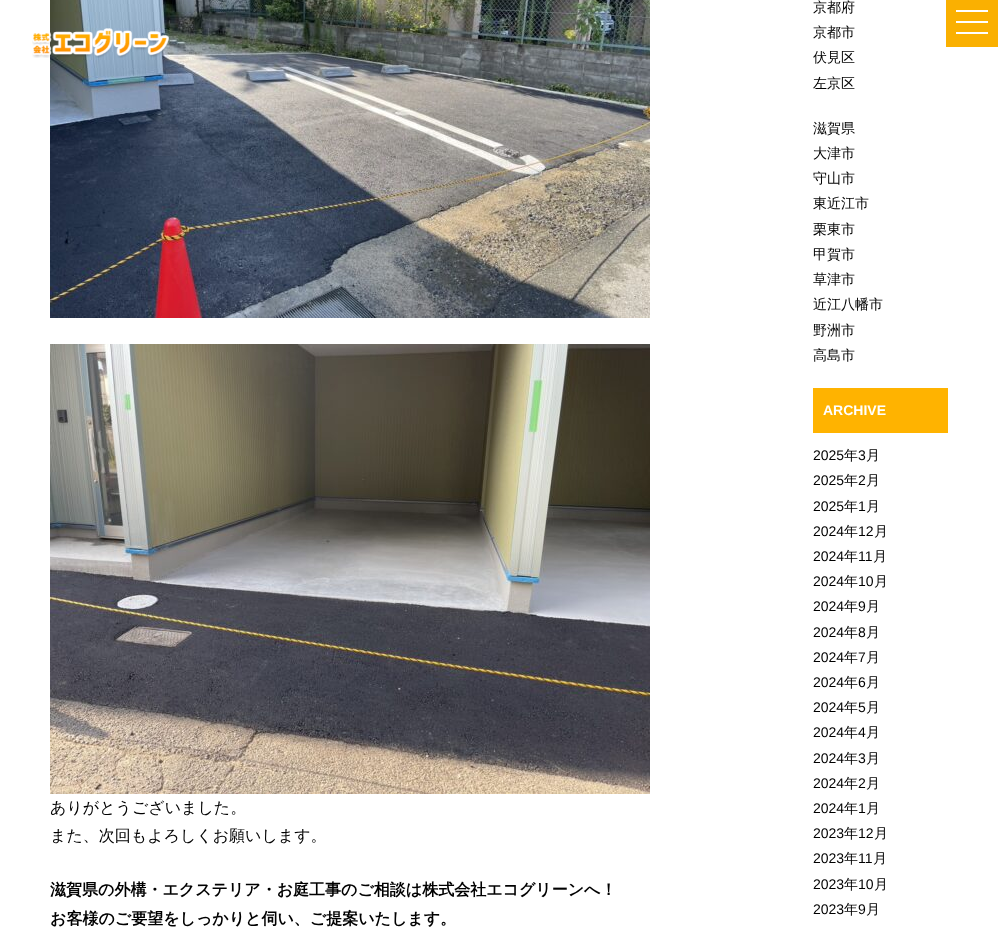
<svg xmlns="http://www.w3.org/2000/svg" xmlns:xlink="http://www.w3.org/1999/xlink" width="998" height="934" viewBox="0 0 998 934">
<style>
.cls-1{font:500 16px WenQuanYi Zen Hei;fill:#000000}
.cls-2{font:bold 16px WenQuanYi Zen Hei;fill:#000000}
.cls-3{font:500 14px WenQuanYi Zen Hei;fill:#000000}
.cls-4{font:bold 14px Liberation Sans;fill:#ffffff}
.cls-5{font:14px Liberation Sans;fill:#000000}
</style>
<rect width="100%" height="100%" fill="#ffffff"/>
<image xlink:href="image1.png" x="50" y="0" width="600" height="318"/>
<image xlink:href="image0.png" x="32" y="28" width="138" height="30"/>
<rect fill="#fab001" x="946" y="0" width="52" height="47"/>
<rect fill="#ffffff" x="956" y="10" width="32" height="2"/>
<rect fill="#ffffff" x="956" y="21" width="32" height="2"/>
<rect fill="#ffffff" x="956" y="32" width="32" height="2"/>
<image xlink:href="image2.png" x="50" y="344" width="600" height="450"/>
<rect fill="#ffb300" x="813" y="388" width="135" height="45"/>
<text class="cls-1"><tspan x="50" y="813">ありがとうございました。</tspan><tspan x="50" y="841">また、次回もよろしくお願いします。</tspan></text>
<text class="cls-2"><tspan x="50" y="895">滋賀県の外構・エクステリア・お庭工事のご相談は株式会社エコグリーンへ！</tspan><tspan x="50" y="924">お客様のご要望をしっかりと伺い、ご提案いたします。</tspan></text>
<text class="cls-3"><tspan x="813" y="12">京都府</tspan><tspan x="813" y="37">京都市</tspan><tspan x="813" y="62">伏見区</tspan><tspan x="813" y="88">左京区</tspan></text>
<text class="cls-3"><tspan x="813" y="133">滋賀県</tspan><tspan x="813" y="158">大津市</tspan><tspan x="813" y="183">守山市</tspan><tspan x="813" y="208">東近江市</tspan><tspan x="813" y="234">栗東市</tspan><tspan x="813" y="259">甲賀市</tspan><tspan x="813" y="284">草津市</tspan><tspan x="813" y="309">近江八幡市</tspan><tspan x="813" y="335">野洲市</tspan><tspan x="813" y="360">高島市</tspan></text>
<text class="cls-4" x="823" y="415">ARCHIVE</text>
<text class="cls-5" x="813" y="460">2025</text>
<text class="cls-3" x="844" y="460">年</text>
<text class="cls-5" x="858" y="460">3</text>
<text class="cls-3" x="866" y="460">月</text>
<text class="cls-5" x="813" y="485">2025</text>
<text class="cls-3" x="844" y="485">年</text>
<text class="cls-5" x="858" y="485">2</text>
<text class="cls-3" x="866" y="485">月</text>
<text class="cls-5" x="813" y="511">2025</text>
<text class="cls-3" x="844" y="511">年</text>
<text class="cls-5" x="858" y="511">1</text>
<text class="cls-3" x="866" y="511">月</text>
<text class="cls-5" x="813" y="536">2024</text>
<text class="cls-3" x="844" y="536">年</text>
<text class="cls-5" x="858" y="536">12</text>
<text class="cls-3" x="874" y="536">月</text>
<text class="cls-5" x="813" y="561">2024</text>
<text class="cls-3" x="844" y="561">年</text>
<text class="cls-5" x="858" y="561">11</text>
<text class="cls-3" x="873" y="561">月</text>
<text class="cls-5" x="813" y="586">2024</text>
<text class="cls-3" x="844" y="586">年</text>
<text class="cls-5" x="858" y="586">10</text>
<text class="cls-3" x="874" y="586">月</text>
<text class="cls-5" x="813" y="611">2024</text>
<text class="cls-3" x="844" y="611">年</text>
<text class="cls-5" x="858" y="611">9</text>
<text class="cls-3" x="866" y="611">月</text>
<text class="cls-5" x="813" y="637">2024</text>
<text class="cls-3" x="844" y="637">年</text>
<text class="cls-5" x="858" y="637">8</text>
<text class="cls-3" x="866" y="637">月</text>
<text class="cls-5" x="813" y="662">2024</text>
<text class="cls-3" x="844" y="662">年</text>
<text class="cls-5" x="858" y="662">7</text>
<text class="cls-3" x="866" y="662">月</text>
<text class="cls-5" x="813" y="687">2024</text>
<text class="cls-3" x="844" y="687">年</text>
<text class="cls-5" x="858" y="687">6</text>
<text class="cls-3" x="866" y="687">月</text>
<text class="cls-5" x="813" y="712">2024</text>
<text class="cls-3" x="844" y="712">年</text>
<text class="cls-5" x="858" y="712">5</text>
<text class="cls-3" x="866" y="712">月</text>
<text class="cls-5" x="813" y="737">2024</text>
<text class="cls-3" x="844" y="737">年</text>
<text class="cls-5" x="858" y="737">4</text>
<text class="cls-3" x="866" y="737">月</text>
<text class="cls-5" x="813" y="763">2024</text>
<text class="cls-3" x="844" y="763">年</text>
<text class="cls-5" x="858" y="763">3</text>
<text class="cls-3" x="866" y="763">月</text>
<text class="cls-5" x="813" y="788">2024</text>
<text class="cls-3" x="844" y="788">年</text>
<text class="cls-5" x="858" y="788">2</text>
<text class="cls-3" x="866" y="788">月</text>
<text class="cls-5" x="813" y="813">2024</text>
<text class="cls-3" x="844" y="813">年</text>
<text class="cls-5" x="858" y="813">1</text>
<text class="cls-3" x="866" y="813">月</text>
<text class="cls-5" x="813" y="838">2023</text>
<text class="cls-3" x="844" y="838">年</text>
<text class="cls-5" x="858" y="838">12</text>
<text class="cls-3" x="874" y="838">月</text>
<text class="cls-5" x="813" y="863">2023</text>
<text class="cls-3" x="844" y="863">年</text>
<text class="cls-5" x="858" y="863">11</text>
<text class="cls-3" x="873" y="863">月</text>
<text class="cls-5" x="813" y="889">2023</text>
<text class="cls-3" x="844" y="889">年</text>
<text class="cls-5" x="858" y="889">10</text>
<text class="cls-3" x="874" y="889">月</text>
<text class="cls-5" x="813" y="914">2023</text>
<text class="cls-3" x="844" y="914">年</text>
<text class="cls-5" x="858" y="914">9</text>
<text class="cls-3" x="866" y="914">月</text>
</svg>
